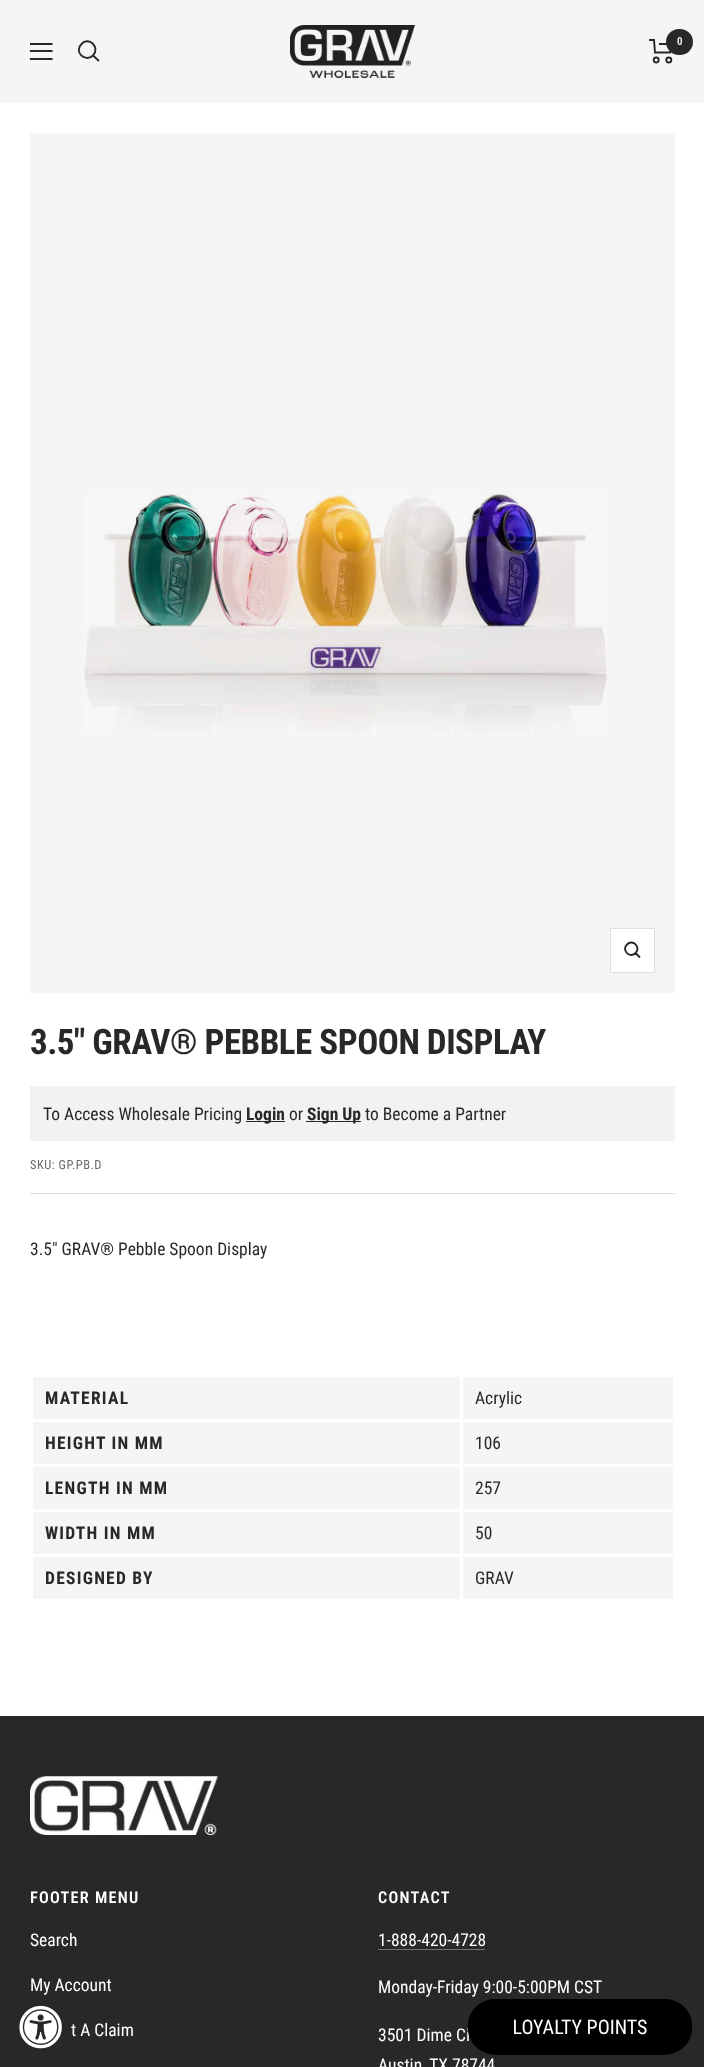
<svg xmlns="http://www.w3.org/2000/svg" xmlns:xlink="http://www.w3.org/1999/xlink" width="704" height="2067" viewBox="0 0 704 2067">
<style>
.cls-1{font:600 11px Roboto Condensed;fill:#f5f5f5}
.cls-2{font:bold 35px Roboto Condensed;letter-spacing:-0.5px;fill:#282828}
.cls-3{font:17.5px Roboto Condensed;fill:#282828}
.cls-4{font:bold 17.5px Roboto Condensed;fill:#282828}
.cls-5{font:12.5px Roboto Condensed;letter-spacing:0.5px;fill:#696969}
.cls-6{font:bold 17.5px Roboto Condensed;letter-spacing:1.25px;fill:#282828}
.cls-7{font:600 16.25px Roboto Condensed;letter-spacing:1.25px;fill:#ffffff}
.cls-8{font:17.5px Roboto Condensed;fill:#ffffff}
</style>
<rect width="100%" height="100%" fill="#ffffff"/>
<rect fill="#f5f5f5" x="0" y="0" width="704" height="103"/>
<path fill="none" stroke="#282828" stroke-width="1.9" d="M30 44H52.5M30 59H52.5ZM30 51H52.5Z"/>
<path fill="none" stroke="#282828" stroke-width="1.9" d="M93 55.5C100.5 47.5 89 36 81.5 44C73.5 51.5 85 63 93 55.5ZM93 55.5L99 61"/>
<image xlink:href="image0.png" x="290" y="25" width="125" height="53"/>
<path fill="none" stroke="#282828" stroke-width="1.9" d="M649 40H654L655 52.5H670L672.5 44H659"/>
<circle fill="none" stroke="#282828" stroke-width="1.9" cx="656.2" cy="60" r="2.5"/>
<circle fill="none" stroke="#282828" stroke-width="1.9" cx="668.8" cy="60" r="2.5"/>
<rect fill="#282828" x="666" y="29" width="27" height="26" rx="13"/>
<rect fill="#f5f5f5" x="30" y="133" width="645" height="860"/>
<image xlink:href="image1.png" x="84" y="494" width="523" height="240"/>
<rect fill="#ffffff" stroke="#dfdfdf" x="610.5" y="928.5" width="44" height="44"/>
<path fill="none" stroke="#282828" stroke-width="1.9" d="M635.5 953C641.5 947.5 632.5 938.5 627 944.5C621 950 630 959 635.5 953ZM635.5 953L640 957.5"/>
<rect fill="#dfdfdf" x="30" y="1193" width="645" height="1"/>
<rect fill="#f2f2f2" x="30" y="1086" width="645" height="55"/>
<rect fill="#282828" x="246" y="1121" width="39" height="1"/>
<rect fill="#282828" x="306" y="1121" width="55" height="1"/>
<rect fill="#f5f5f5" x="33" y="1377" width="427" height="42"/>
<rect fill="#f5f5f5" x="463" y="1377" width="210" height="42"/>
<rect fill="#f5f5f5" x="33" y="1422" width="427" height="42"/>
<rect fill="#f5f5f5" x="463" y="1422" width="210" height="42"/>
<rect fill="#f5f5f5" x="33" y="1467" width="427" height="42"/>
<rect fill="#f5f5f5" x="463" y="1467" width="210" height="42"/>
<rect fill="#f5f5f5" x="33" y="1512" width="427" height="42"/>
<rect fill="#f5f5f5" x="463" y="1512" width="210" height="42"/>
<rect fill="#f5f5f5" x="33" y="1557" width="427" height="42"/>
<rect fill="#f5f5f5" x="463" y="1557" width="210" height="42"/>
<rect fill="#282828" x="0" y="1716" width="704" height="351"/>
<image xlink:href="image2.png" x="30" y="1776" width="188" height="59"/>
<rect fill="#737373" x="378" y="1949" width="107" height="1"/>
<image xlink:href="image3.png" x="19" y="2005" width="43" height="44"/>
<text class="cls-1" x="677" y="45">0</text>
<text class="cls-2" x="30" y="1054">3.5" GRAV® PEBBLE SPOON DISPLAY</text>
<text class="cls-3" x="43" y="1120">To Access Wholesale Pricing</text>
<text class="cls-4" x="246" y="1120">Login</text>
<text class="cls-3" x="289" y="1120">or</text>
<text class="cls-4" x="307" y="1120">Sign Up</text>
<text class="cls-3" x="365" y="1120">to Become a Partner</text>
<text class="cls-5" x="30" y="1169">SKU: GP.PB.D</text>
<text class="cls-3" x="30" y="1255">3.5" GRAV® Pebble Spoon Display</text>
<text class="cls-6" x="45" y="1404">MATERIAL</text>
<text class="cls-3" x="475" y="1404">Acrylic</text>
<text class="cls-6" x="45" y="1449">HEIGHT IN MM</text>
<text class="cls-3" x="475" y="1449">106</text>
<text class="cls-6" x="45" y="1494">LENGTH IN MM</text>
<text class="cls-3" x="475" y="1494">257</text>
<text class="cls-6" x="45" y="1539">WIDTH IN MM</text>
<text class="cls-3" x="475" y="1539">50</text>
<text class="cls-6" x="45" y="1584">DESIGNED BY</text>
<text class="cls-3" x="475" y="1584">GRAV</text>
<text class="cls-7" x="30" y="1903">FOOTER MENU</text>
<text class="cls-8" x="30" y="1946">Search</text>
<text class="cls-8" x="30" y="1991">My Account</text>
<text class="cls-8" x="71" y="2036">t A Claim</text>
<text class="cls-7" x="378" y="1903">CONTACT</text>
<text class="cls-8" x="378" y="1946">1-888-420-4728</text>
<text class="cls-8" x="378" y="1993">Monday-Friday 9:00-5:00PM CST</text>
<text class="cls-8"><tspan x="378" y="2041">3501 Dime Ci</tspan><tspan x="378" y="2071">Austin, TX 78744</tspan></text>
<image xlink:href="image4.png" x="467" y="1999" width="226" height="56"/>
</svg>
